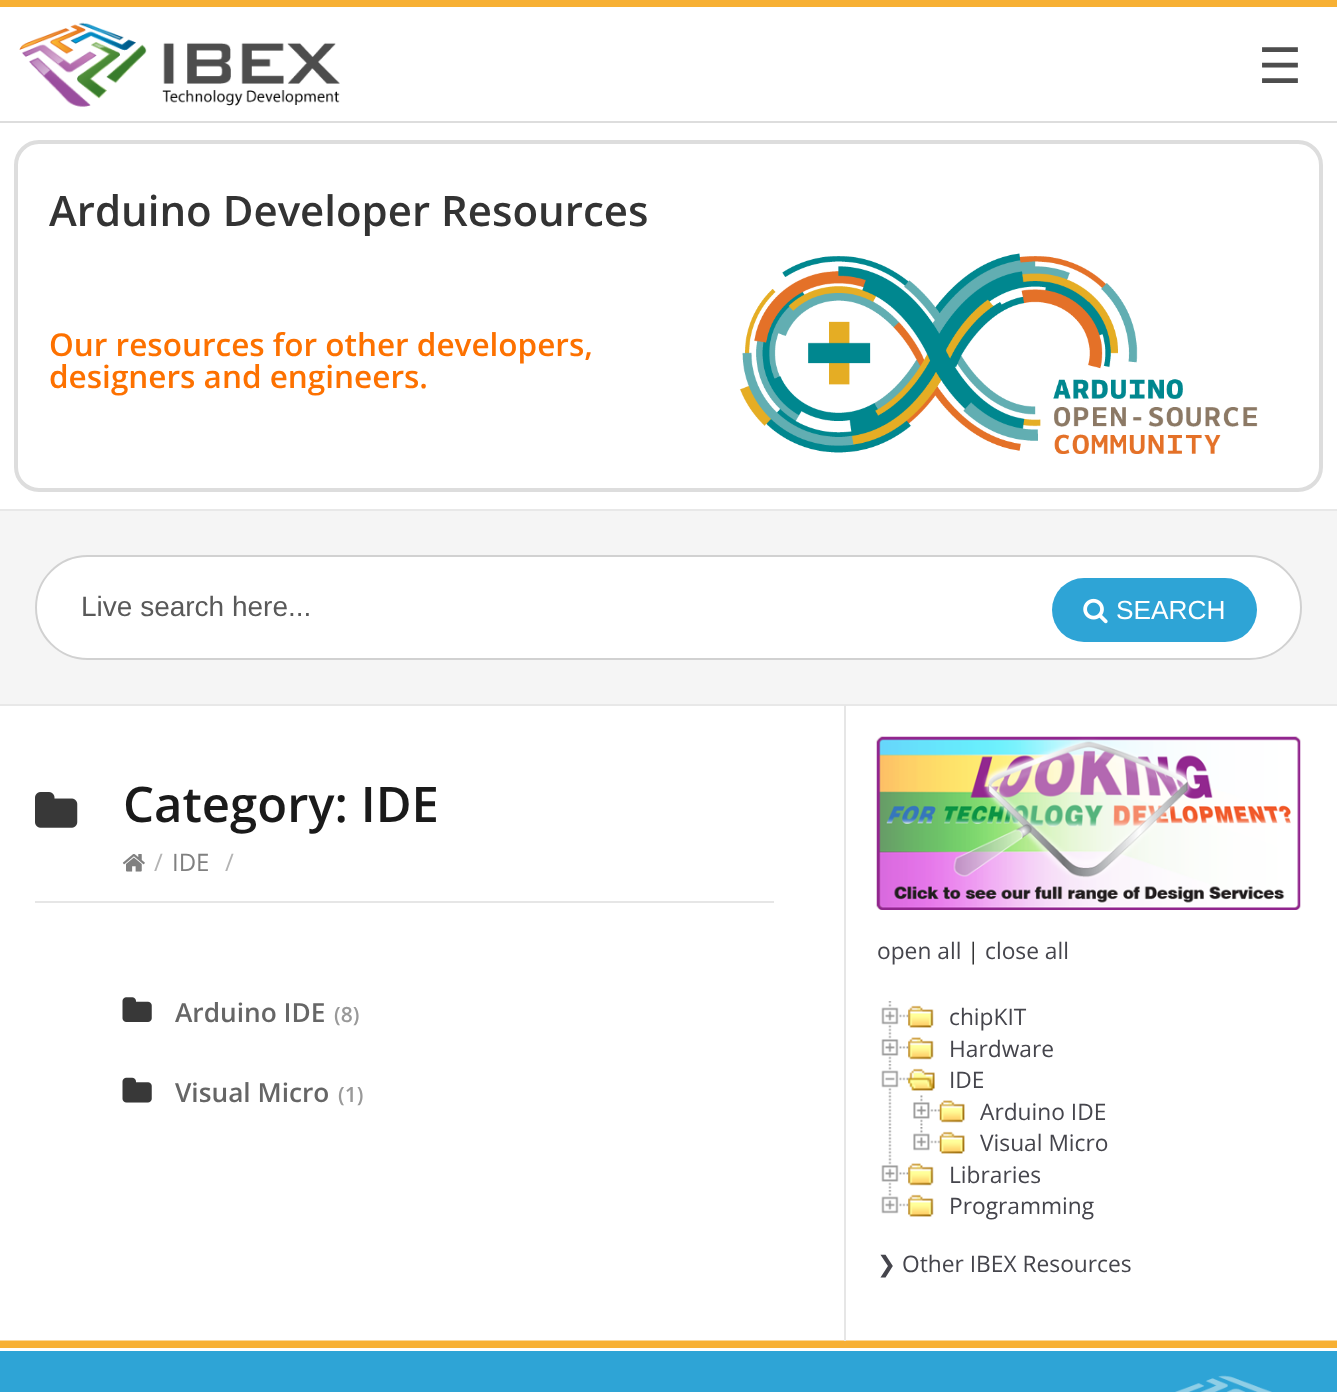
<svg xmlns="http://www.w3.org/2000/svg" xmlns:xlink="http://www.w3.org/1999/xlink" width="1337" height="1392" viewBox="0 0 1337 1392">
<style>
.cls-1{font:49px DejaVu Sans;fill:#4d4d4d}
.cls-2{font:600 42px Open Sans;fill:#333333}
.cls-3{font:600 31.5px Open Sans;fill:#fd7100}
.cls-4{font:28px Liberation Sans;fill:#595959}
.cls-5{font:26.25px Liberation Sans;fill:#ffffff}
.cls-6{font:600 49px Open Sans;fill:#1a1a1a}
.cls-7{font:24px Open Sans;fill:#b3b3b3}
.cls-8{font:24px Open Sans;fill:#808080}
.cls-9{font:600 26.25px Open Sans;fill:#666666}
.cls-10{font:600 21px Open Sans;fill:#999999}
.cls-11{font:22.75px Open Sans;fill:#45454c}
.cls-12{font:22.75px Open Sans;fill:#333333}
.cls-13{font:22.75px DejaVu Sans;fill:#45454c}
</style>
<rect width="100%" height="100%" fill="#ffffff"/>
<image xlink:href="image0.png" x="0" y="1340" width="1337" height="1"/>
<rect fill="#f7b034" x="0" y="0" width="1337" height="7"/>
<rect fill="#dddddd" x="0" y="121" width="1337" height="2"/>
<image xlink:href="image1.png" x="19" y="22" width="321" height="85"/>
<rect fill="none" stroke="#dddddd" stroke-width="4" x="16" y="142" width="1305" height="348" rx="23"/>
<image xlink:href="image2.png" x="739" y="253" width="519" height="201"/>
<rect fill="#f5f5f5" x="0" y="511" width="1337" height="193"/>
<rect fill="#e8e8e8" x="0" y="509" width="1337" height="2"/>
<rect fill="#e8e8e8" x="0" y="704" width="1337" height="2"/>
<rect fill="#ffffff" stroke="#d1d1d1" stroke-width="2" x="36" y="556" width="1265" height="103" rx="51.5"/>
<rect fill="#2ea4d6" x="1052" y="578" width="205" height="64" rx="32"/>
<image xlink:href="image3.png" x="1083" y="598" width="25" height="26"/>
<rect fill="#e6e6e6" x="35" y="901" width="739" height="2"/>
<image xlink:href="image4.png" x="35" y="792" width="43" height="36"/>
<image xlink:href="image5.png" x="122" y="854" width="23" height="18"/>
<image xlink:href="image6.png" x="122" y="997" width="30" height="25"/>
<image xlink:href="image7.png" x="122" y="1077" width="30" height="26"/>
<rect fill="#e6e6e6" x="844" y="705" width="2" height="636"/>
<image xlink:href="image8.png" x="876" y="736" width="425" height="174"/>
<image xlink:href="image9.png" x="881" y="1001" width="28" height="31"/>
<image xlink:href="image10.png" x="908" y="1005" width="26" height="23"/>
<image xlink:href="image11.png" x="881" y="1032" width="28" height="31"/>
<image xlink:href="image12.png" x="908" y="1037" width="26" height="23"/>
<image xlink:href="image13.png" x="881" y="1064" width="28" height="31"/>
<image xlink:href="image14.png" x="908" y="1068" width="27" height="23"/>
<image xlink:href="image15.png" x="888" y="1095" width="4" height="31"/>
<image xlink:href="image16.png" x="913" y="1095" width="27" height="31"/>
<image xlink:href="image17.png" x="939" y="1100" width="26" height="23"/>
<image xlink:href="image18.png" x="888" y="1127" width="4" height="31"/>
<image xlink:href="image19.png" x="913" y="1127" width="27" height="24"/>
<image xlink:href="image20.png" x="939" y="1131" width="26" height="23"/>
<image xlink:href="image11.png" x="881" y="1158" width="28" height="31"/>
<image xlink:href="image12.png" x="908" y="1163" width="26" height="23"/>
<image xlink:href="image21.png" x="881" y="1190" width="28" height="24"/>
<image xlink:href="image10.png" x="908" y="1194" width="26" height="23"/>
<rect fill="#f7b034" x="0" y="1341" width="1337" height="7"/>
<rect fill="#2ea4d6" x="0" y="1351" width="1337" height="41"/>
<image xlink:href="image22.png" x="1175" y="1375" width="97" height="17"/>
<text class="cls-1" x="1258" y="83">☰</text>
<text class="cls-2" x="49" y="226">Arduino Developer Resources</text>
<text class="cls-3"><tspan x="49" y="356">Our resources for other developers,</tspan><tspan x="49" y="388">designers and engineers.</tspan></text>
<text class="cls-4" x="81" y="616">Live search here...</text>
<text class="cls-5" x="1116" y="619">SEARCH</text>
<text class="cls-6" x="123" y="822">Category: IDE</text>
<text class="cls-7" x="154" y="871">/</text>
<text class="cls-8" x="172" y="871">IDE</text>
<text class="cls-7" x="225" y="871">/</text>
<text class="cls-9" x="175" y="1022">Arduino IDE</text>
<text class="cls-10" x="334" y="1022">(8)</text>
<text class="cls-9" x="175" y="1102">Visual Micro</text>
<text class="cls-10" x="338" y="1102">(1)</text>
<text class="cls-11" x="877" y="959">open all</text>
<text class="cls-12" x="967" y="959">|</text>
<text class="cls-11" x="985" y="959">close all</text>
<text class="cls-11"><tspan x="949" y="1025">chipKIT</tspan><tspan x="949" y="1057">Hardware</tspan><tspan x="949" y="1088">IDE</tspan></text>
<text class="cls-11"><tspan x="980" y="1120">Arduino IDE</tspan><tspan x="980" y="1151">Visual Micro</tspan></text>
<text class="cls-11"><tspan x="949" y="1183">Libraries</tspan><tspan x="949" y="1214">Programming</tspan></text>
<text class="cls-13" x="877" y="1272">❯</text>
<text class="cls-11" x="902" y="1272">Other IBEX Resources</text>
</svg>
